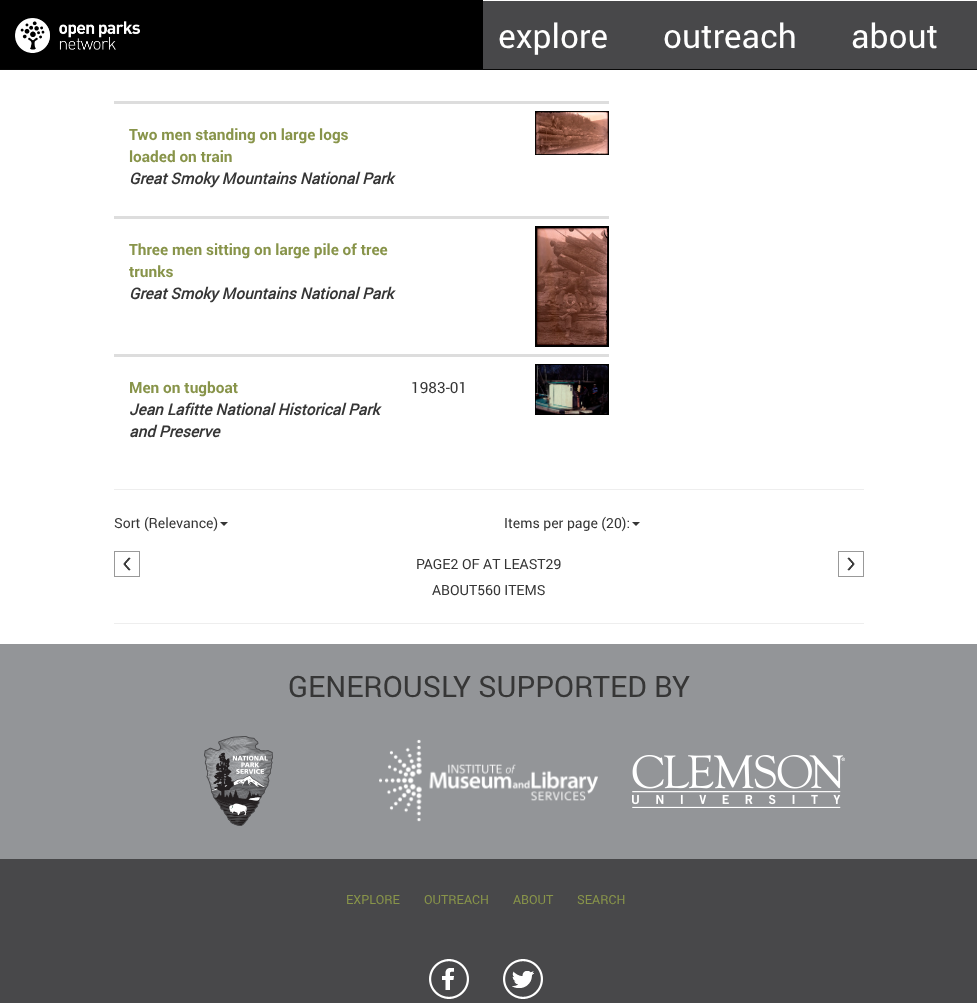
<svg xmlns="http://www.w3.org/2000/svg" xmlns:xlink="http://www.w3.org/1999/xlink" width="977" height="1003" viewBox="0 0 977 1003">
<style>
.cls-1{font:33.5px Roboto;fill:#ffffff}
.cls-2{font:bold 15.4px Roboto;fill:#88944a}
.cls-3{font:italic bold 15.4px Roboto;fill:#363636}
.cls-4{font:15.4px Roboto;fill:#363636}
.cls-5{font:14px Roboto;fill:#363636}
.cls-6{font:29.4px Roboto;fill:#363636}
.cls-7{font:12.5px Roboto;fill:#88944a}
</style>
<rect width="100%" height="100%" fill="#ffffff"/>
<rect fill="#000000" x="0" y="0" width="483" height="69"/>
<rect fill="#080808" x="0" y="69" width="977" height="1"/>
<image xlink:href="image0.png" x="15" y="18" width="125" height="35"/>
<rect fill="#48484a" x="483" y="1" width="494" height="68"/>
<rect fill="#dddddd" x="114" y="101" width="495" height="3"/>
<image xlink:href="image1.png" x="535" y="111" width="74" height="44"/>
<rect fill="#dddddd" x="114" y="216" width="495" height="3"/>
<image xlink:href="image2.png" x="535" y="226" width="74" height="121"/>
<rect fill="#dddddd" x="114" y="354" width="495" height="3"/>
<image xlink:href="image3.png" x="535" y="364" width="74" height="51"/>
<rect fill="#eeeeee" x="114" y="489" width="750" height="1"/>
<path fill="#363636" d="M220 522H228L224 526Z"/>
<path fill="#363636" d="M632 522H640L636 526Z"/>
<image xlink:href="image4.png" x="114" y="551" width="26" height="26"/>
<image xlink:href="image5.png" x="838" y="551" width="26" height="26"/>
<rect fill="#eeeeee" x="114" y="623" width="750" height="1"/>
<rect fill="#939598" x="0" y="644" width="977" height="215"/>
<image xlink:href="image6.png" x="204" y="736" width="69" height="90"/>
<image xlink:href="image7.png" x="379" y="739" width="219" height="83"/>
<image xlink:href="image8.png" x="632" y="755" width="213" height="53"/>
<rect fill="#48484a" x="0" y="859" width="977" height="144"/>
<image xlink:href="image9.png" x="429" y="959" width="40" height="40"/>
<image xlink:href="image10.png" x="503" y="959" width="40" height="40"/>
<text class="cls-1" x="498" y="48">explore</text>
<text class="cls-1" x="663" y="48">outreach</text>
<text class="cls-1" x="851" y="48">about</text>
<text class="cls-2"><tspan x="129" y="140">Two men standing on large logs</tspan><tspan x="129" y="162">loaded on train</tspan></text>
<text class="cls-3" x="129" y="184">Great Smoky Mountains National Park</text>
<text class="cls-2"><tspan x="129" y="255">Three men sitting on large pile of tree</tspan><tspan x="129" y="277">trunks</tspan></text>
<text class="cls-3" x="129" y="299">Great Smoky Mountains National Park</text>
<text class="cls-2" x="129" y="393">Men on tugboat</text>
<text class="cls-3"><tspan x="129" y="415">Jean Lafitte National Historical Park</tspan><tspan x="129" y="437">and Preserve</tspan></text>
<text class="cls-4" x="411" y="393">1983-01</text>
<text class="cls-5" x="114" y="528">Sort (Relevance)</text>
<text class="cls-5" x="504" y="528">Items per page (20):</text>
<text class="cls-5" x="416" y="569">PAGE2 OF AT LEAST29</text>
<text class="cls-5" x="432" y="595">ABOUT560 ITEMS</text>
<text class="cls-6" x="288" y="697">GENEROUSLY SUPPORTED BY</text>
<text class="cls-7" x="346" y="904">EXPLORE</text>
<text class="cls-7" x="424" y="904">OUTREACH</text>
<text class="cls-7" x="513" y="904">ABOUT</text>
<text class="cls-7" x="577" y="904">SEARCH</text>
</svg>
